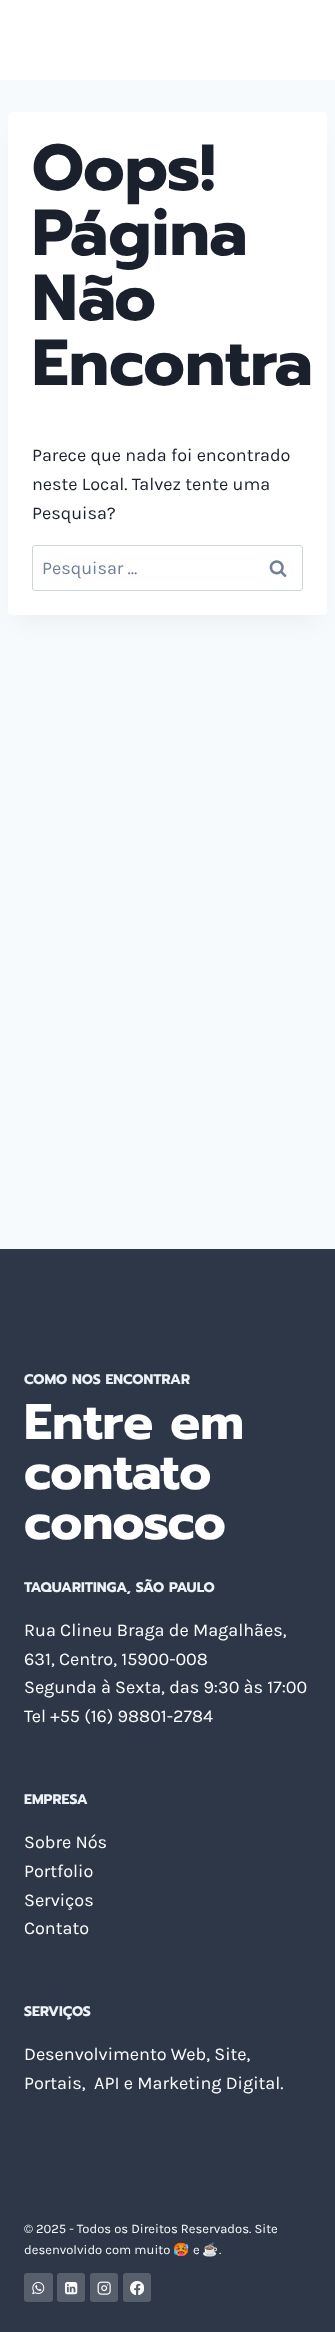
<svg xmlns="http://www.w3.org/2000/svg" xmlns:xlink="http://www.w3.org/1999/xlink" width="335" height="2332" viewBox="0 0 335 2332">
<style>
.cls-1{font:bold 65px Prompt;fill:#1a202c}
.cls-2{font:18px Karla;fill:#1a202c}
.cls-3{font:18px Karla;fill:#718096}
.cls-4{font:bold 14px Prompt;fill:#edf2f7}
.cls-5{font:bold 50px Prompt;fill:#ffffff}
.cls-6{font:18px Karla;fill:#ffffff}
.cls-7{font:13px Karla;fill:#f7fafc}
.cls-8{font:13px Noto Color Emoji;fill:#f7fafc}
</style>
<rect width="100%" height="100%" fill="#f7fafc"/>
<rect fill="#ffffff" x="0" y="0" width="335" height="80"/>
<rect fill="#000000" fill-opacity="0.05" filter="blur(12.5px)" x="18" y="137" width="299" height="483"/>
<rect fill="#ffffff" x="8" y="112" width="319" height="503" rx="4"/>
<rect fill="none" stroke="#cbd5e0" x="32.5" y="545.5" width="270" height="45" rx="2.5"/>
<image xlink:href="image0.png" x="269" y="560" width="18" height="17"/>
<rect fill="#2d3748" x="0" y="1249" width="335" height="1083"/>
<rect fill="#575f6d" x="24" y="2273" width="29" height="29" rx="3"/>
<image xlink:href="image1.png" x="32" y="2282" width="13" height="13"/>
<rect fill="#575f6d" x="57" y="2273" width="28" height="29" rx="3"/>
<image xlink:href="image2.png" x="65" y="2282" width="13" height="13"/>
<rect fill="#575f6d" x="90" y="2273" width="28" height="29" rx="3"/>
<image xlink:href="image3.png" x="97" y="2281" width="14" height="14"/>
<rect fill="#575f6d" x="123" y="2273" width="28" height="29" rx="3"/>
<image xlink:href="image4.png" x="130" y="2281" width="14" height="14"/>
<text class="cls-1"><tspan x="32" y="190">Oops!</tspan><tspan x="32" y="255">Página</tspan><tspan x="32" y="320">Não</tspan><tspan x="32" y="385">Encontra</tspan></text>
<text class="cls-2"><tspan x="32" y="461">Parece que nada foi encontrado</tspan><tspan x="32" y="490">neste Local. Talvez tente uma</tspan><tspan x="32" y="519">Pesquisa?</tspan></text>
<text class="cls-3" x="42" y="574">Pesquisar …</text>
<text class="cls-4" x="24" y="1384">COMO NOS ENCONTRAR</text>
<text class="cls-5"><tspan x="24" y="1439">Entre em</tspan><tspan x="24" y="1489">contato</tspan><tspan x="24" y="1539">conosco</tspan></text>
<text class="cls-4" x="24" y="1592">TAQUARITINGA, SÃO PAULO</text>
<text class="cls-6"><tspan x="24" y="1636">Rua Clineu Braga de Magalhães,</tspan><tspan x="24" y="1665">631, Centro, 15900-008</tspan><tspan x="24" y="1693">Segunda à Sexta, das 9:30 às 17:00</tspan><tspan x="24" y="1722">Tel +55 (16) 98801-2784</tspan></text>
<text class="cls-4" x="24" y="1804">EMPRESA</text>
<text class="cls-6"><tspan x="24" y="1848">Sobre Nós</tspan><tspan x="24" y="1877">Portfolio</tspan><tspan x="24" y="1906">Serviços</tspan><tspan x="24" y="1934">Contato</tspan></text>
<text class="cls-4" x="24" y="2016">SERVIÇOS</text>
<text class="cls-6" xml:space="preserve"><tspan x="24" y="2060">Desenvolvimento Web, Site,</tspan><tspan x="24" y="2089">Portais,  API e Marketing Digital.</tspan></text>
<text class="cls-7"><tspan x="24" y="2233">© 2025 - Todos os Direitos Reservados. Site</tspan><tspan x="24" y="2254">desenvolvido com muito</tspan></text>
<text class="cls-8" x="173" y="2254">🥵</text>
<text class="cls-7" x="193" y="2254">e</text>
<text class="cls-8" x="202" y="2254">☕</text>
<text class="cls-7" x="219" y="2254">.</text>
</svg>
